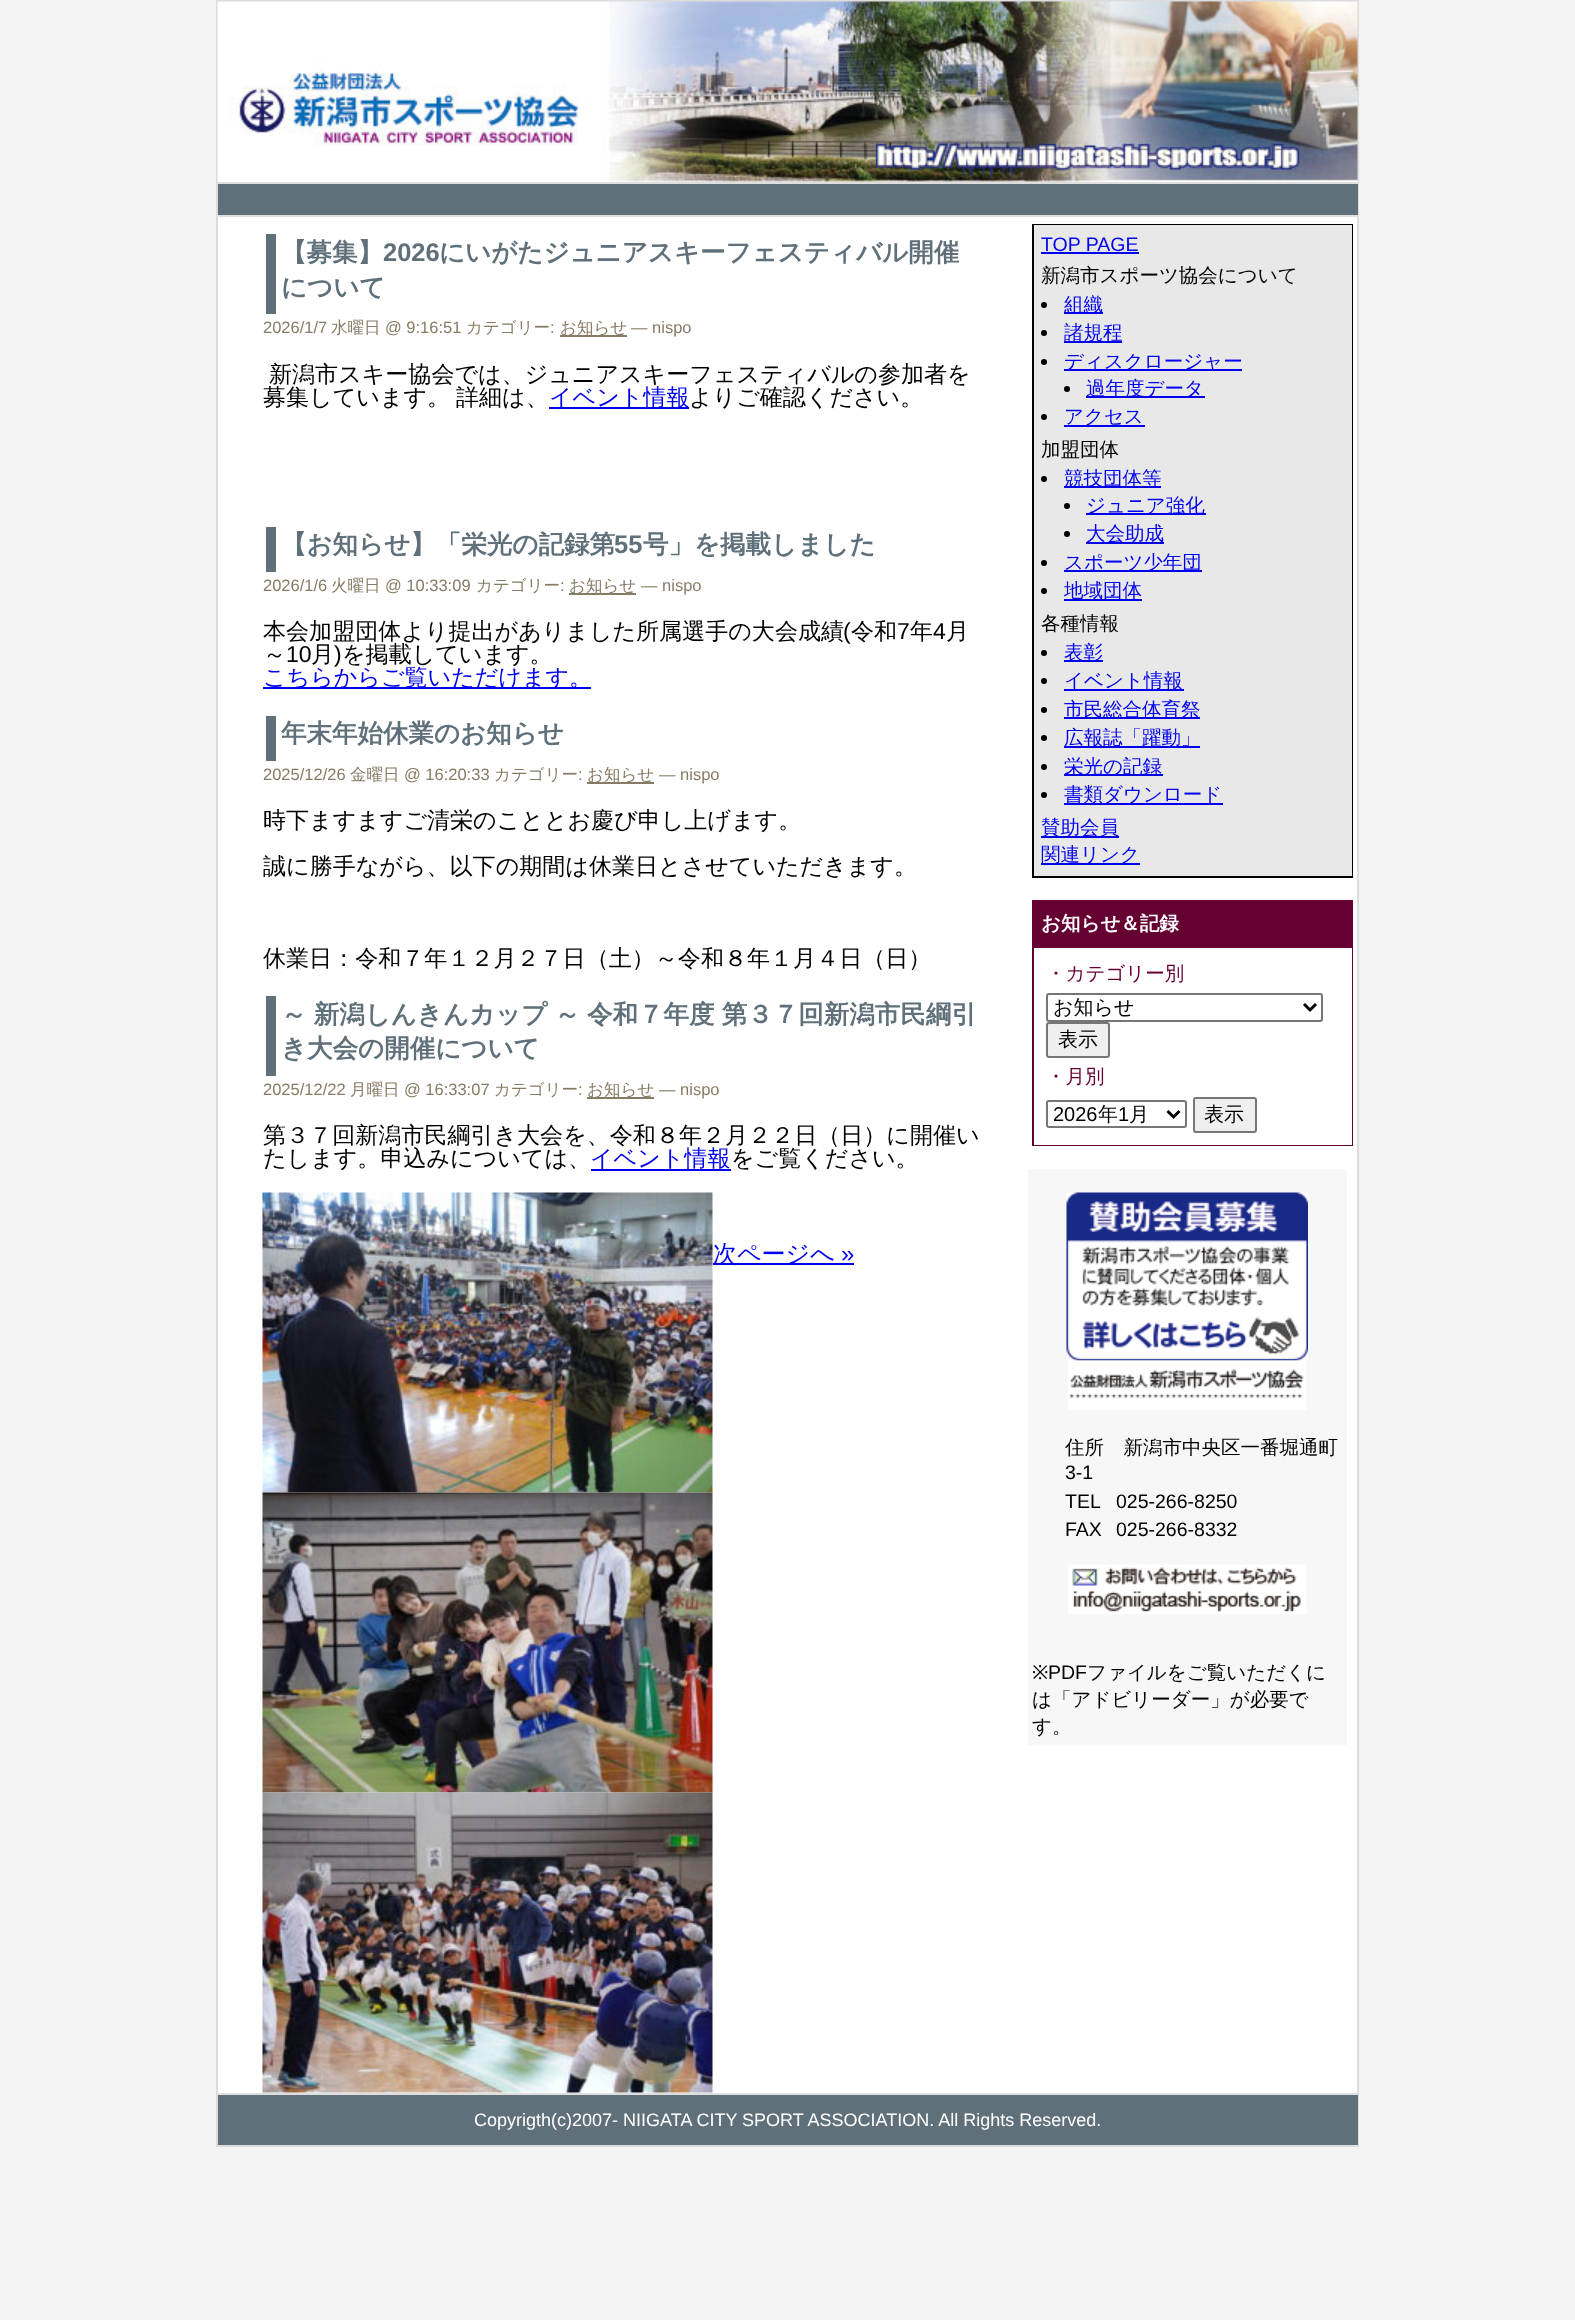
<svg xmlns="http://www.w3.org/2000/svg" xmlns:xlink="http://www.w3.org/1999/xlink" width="1575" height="2320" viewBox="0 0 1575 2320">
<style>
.cls-1{font:bold 25.5px WenQuanYi Zen Hei;fill:#5f707a}
.cls-2{font:bold 25.5px Liberation Sans;fill:#5f707a}
.cls-3{font:16.5px Liberation Sans;fill:#867b64}
.cls-4{font:500 16.5px WenQuanYi Zen Hei;fill:#867b64}
.cls-5{font:500 23.05px WenQuanYi Zen Hei;fill:#000000}
.cls-6{font:500 23.05px WenQuanYi Zen Hei;fill:#0000ee}
.cls-7{font:23.05px Liberation Sans;fill:#000000}
.cls-8{font:500 24px WenQuanYi Zen Hei;fill:#0000ee}
.cls-9{font:24px Liberation Sans;fill:#0000ee}
.cls-10{font:19.5px Liberation Sans;fill:#0000ee}
.cls-11{font:500 19.5px WenQuanYi Zen Hei;fill:#000000}
.cls-12{font:500 19.5px WenQuanYi Zen Hei;fill:#0000ee}
.cls-13{font:bold 19.5px WenQuanYi Zen Hei;fill:#ffffff}
.cls-14{font:500 19.5px WenQuanYi Zen Hei;fill:#660033}
.cls-15{font:500 20px WenQuanYi Zen Hei;fill:#000000}
.cls-16{font:20px Liberation Sans;fill:#000000}
.cls-17{font:19.5px Liberation Sans;fill:#000000}
.cls-18{font:19.5px Noto Sans;fill:#000000}
.cls-19{font:18px Liberation Sans;fill:#ffffff}
</style>
<rect width="100%" height="100%" fill="#f3f3f3"/>
<rect fill="#ffffff" x="218" y="181" width="1139" height="1912"/>
<rect fill="none" stroke="#dcdcdc" stroke-width="2" x="217" y="1" width="1141" height="2145"/>
<image xlink:href="image0.png" x="217" y="1" width="1141" height="181"/>
<rect fill="#5f707a" x="218" y="184" width="1140" height="31"/>
<rect fill="#dfdfdf" x="218" y="182" width="1140" height="2"/>
<rect fill="#dfdfdf" x="218" y="215" width="1140" height="2"/>
<rect fill="#5f707a" x="266" y="234" width="10" height="80"/>
<rect fill="#867b64" x="560" y="335" width="67" height="2"/>
<rect fill="#0000ee" x="549" y="407" width="140" height="2"/>
<rect fill="#5f707a" x="266" y="527" width="10" height="45"/>
<rect fill="#867b64" x="569" y="593" width="67" height="2"/>
<rect fill="#0000ee" x="263" y="687" width="328" height="2"/>
<rect fill="#5f707a" x="266" y="716" width="10" height="45"/>
<rect fill="#867b64" x="587" y="782" width="67" height="2"/>
<rect fill="#5f707a" x="266" y="996" width="10" height="80"/>
<rect fill="#867b64" x="587" y="1097" width="67" height="2"/>
<rect fill="#0000ee" x="591" y="1169" width="140" height="2"/>
<image xlink:href="image1.png" x="262" y="1192" width="451" height="301"/>
<image xlink:href="image2.png" x="262" y="1492" width="451" height="301"/>
<image xlink:href="image3.png" x="262" y="1792" width="451" height="301"/>
<rect fill="#0000ee" x="713" y="1263" width="141" height="2"/>
<rect fill="#000000" x="1032" y="224" width="321" height="654"/>
<rect fill="#e8e8e8" x="1034" y="225" width="318" height="651"/>
<rect fill="#0000ee" x="1041" y="252" width="98" height="2"/>
<circle fill="#000000" cx="1044" cy="305" r="3"/>
<rect fill="#0000ee" x="1064" y="312" width="39" height="2"/>
<circle fill="#000000" cx="1044" cy="333" r="3"/>
<rect fill="#0000ee" x="1064" y="341" width="58" height="2"/>
<circle fill="#000000" cx="1044" cy="362" r="3"/>
<rect fill="#0000ee" x="1064" y="369" width="178" height="2"/>
<circle fill="#000000" cx="1067" cy="389" r="3"/>
<rect fill="#0000ee" x="1086" y="396" width="119" height="2"/>
<circle fill="#000000" cx="1044" cy="417" r="3"/>
<rect fill="#0000ee" x="1064" y="425" width="81" height="2"/>
<circle fill="#000000" cx="1044" cy="479" r="3"/>
<rect fill="#0000ee" x="1064" y="486" width="97" height="2"/>
<circle fill="#000000" cx="1067" cy="506" r="3"/>
<rect fill="#0000ee" x="1086" y="513" width="120" height="2"/>
<circle fill="#000000" cx="1067" cy="534" r="3"/>
<rect fill="#0000ee" x="1086" y="542" width="78" height="2"/>
<circle fill="#000000" cx="1044" cy="563" r="3"/>
<rect fill="#0000ee" x="1064" y="570" width="138" height="2"/>
<circle fill="#000000" cx="1044" cy="591" r="3"/>
<rect fill="#0000ee" x="1064" y="599" width="78" height="2"/>
<circle fill="#000000" cx="1044" cy="653" r="3"/>
<rect fill="#0000ee" x="1064" y="660" width="39" height="2"/>
<circle fill="#000000" cx="1044" cy="681" r="3"/>
<rect fill="#0000ee" x="1064" y="689" width="120" height="2"/>
<circle fill="#000000" cx="1044" cy="710" r="3"/>
<rect fill="#0000ee" x="1064" y="717" width="136" height="2"/>
<circle fill="#000000" cx="1044" cy="738" r="3"/>
<rect fill="#0000ee" x="1064" y="746" width="136" height="2"/>
<circle fill="#000000" cx="1044" cy="767" r="3"/>
<rect fill="#0000ee" x="1064" y="774" width="99" height="2"/>
<circle fill="#000000" cx="1044" cy="795" r="3"/>
<rect fill="#0000ee" x="1064" y="803" width="159" height="2"/>
<rect fill="#0000ee" x="1041" y="836" width="78" height="2"/>
<rect fill="#0000ee" x="1041" y="863" width="99" height="2"/>
<rect fill="#660033" x="1032" y="900" width="321" height="246"/>
<rect fill="#ffffff" x="1034" y="948" width="318" height="197"/>
<rect fill="none" stroke="#767676" stroke-width="2" x="1047" y="994" width="275" height="27" rx="2"/>
<path fill="none" stroke="#000000" stroke-width="3" d="M1304 1004L1310 1010L1316 1004"/>
<rect fill="#efefef" stroke="#767676" stroke-width="2" x="1047" y="1023" width="62" height="34" rx="2"/>
<rect fill="none" stroke="#767676" stroke-width="2" x="1047" y="1101" width="139" height="26" rx="2"/>
<path fill="none" stroke="#000000" stroke-width="3" d="M1167.5 1111L1173.5 1117L1179.5 1111"/>
<rect fill="#efefef" stroke="#767676" stroke-width="2" x="1194" y="1098" width="62" height="34" rx="2"/>
<rect fill="#f7f7f7" x="1028" y="1169" width="319" height="576"/>
<image xlink:href="image4.png" x="1066" y="1192" width="242" height="169"/>
<image xlink:href="image5.png" x="1068" y="1360" width="239" height="50"/>
<image xlink:href="image6.png" x="1068" y="1564" width="239" height="50"/>
<rect fill="#5f707a" x="218" y="2095" width="1140" height="50"/>
<rect fill="#dfdfdf" x="218" y="2093" width="1140" height="2"/>
<text class="cls-1" x="281" y="261">【募集】</text>
<text class="cls-2" x="383" y="261">2026</text>
<text class="cls-1" x="439" y="261">にいがたジュニアスキーフェスティバル開催</text>
<text class="cls-1" x="281" y="296">について</text>
<text class="cls-3" x="263" y="333">2026/1/7</text>
<text class="cls-4" x="331" y="333">水曜日</text>
<text class="cls-3" x="385" y="333">@ 9:16:51</text>
<text class="cls-4" x="466" y="333">カテゴリー</text>
<text class="cls-3" x="550" y="333">:</text>
<text class="cls-4" x="560" y="333">お知らせ</text>
<text class="cls-3" x="631" y="333">— nispo</text>
<text class="cls-5" x="269" y="382">新潟市スキー協会では、ジュニアスキーフェスティバルの参加者を</text>
<text class="cls-5" x="263" y="405" word-spacing="-1">募集しています。 詳細は、</text>
<text class="cls-6" x="549" y="405">イベント情報</text>
<text class="cls-5" x="689" y="405">よりご確認ください。</text>
<text class="cls-1" x="281" y="553">【お知らせ】「栄光の記録第</text>
<text class="cls-2" x="614" y="553">55</text>
<text class="cls-1" x="643" y="553">号」を掲載しました</text>
<text class="cls-3" x="263" y="591">2026/1/6</text>
<text class="cls-4" x="331" y="591">火曜日</text>
<text class="cls-3" x="385" y="591">@ 10:33:09</text>
<text class="cls-4" x="476" y="591">カテゴリー</text>
<text class="cls-3" x="560" y="591">:</text>
<text class="cls-4" x="569" y="591">お知らせ</text>
<text class="cls-3" x="641" y="591">— nispo</text>
<text class="cls-5" x="263" y="639">本会加盟団体より提出がありました所属選手の大会成績</text>
<text class="cls-7" x="843" y="639">(</text>
<text class="cls-5" x="851" y="639">令和</text>
<text class="cls-7" x="897" y="639">7</text>
<text class="cls-5" x="910" y="639">年</text>
<text class="cls-7" x="933" y="639">4</text>
<text class="cls-5" x="946" y="639">月</text>
<text class="cls-5" x="263" y="662">～</text>
<text class="cls-7" x="286" y="662">10</text>
<text class="cls-5" x="311" y="662">月</text>
<text class="cls-7" x="334" y="662">)</text>
<text class="cls-5" x="342" y="662">を掲載しています。</text>
<text class="cls-6" x="263" y="685">こちらからご覧いただけます。</text>
<text class="cls-1" x="281" y="742">年末年始休業のお知らせ</text>
<text class="cls-3" x="263" y="780">2025/12/26</text>
<text class="cls-4" x="350" y="780">金曜日</text>
<text class="cls-3" x="404" y="780">@ 16:20:33</text>
<text class="cls-4" x="494" y="780">カテゴリー</text>
<text class="cls-3" x="578" y="780">:</text>
<text class="cls-4" x="587" y="780">お知らせ</text>
<text class="cls-3" x="659" y="780">— nispo</text>
<text class="cls-5"><tspan x="263" y="828">時下ますますご清栄のこととお慶び申し上げます。</tspan><tspan x="263" y="874">誠に勝手ながら、以下の期間は休業日とさせていただきます。</tspan></text>
<text class="cls-5" x="263" y="966">休業日：令和７年１２月２７日（土）～令和８年１月４日（日）</text>
<text class="cls-1"><tspan x="281" y="1023" word-spacing="-0.5">～ 新潟しんきんカップ ～ 令和７年度 第３７回新潟市民綱引</tspan><tspan x="281" y="1057">き大会の開催について</tspan></text>
<text class="cls-3" x="263" y="1095">2025/12/22</text>
<text class="cls-4" x="350" y="1095">月曜日</text>
<text class="cls-3" x="404" y="1095">@ 16:33:07</text>
<text class="cls-4" x="494" y="1095">カテゴリー</text>
<text class="cls-3" x="578" y="1095">:</text>
<text class="cls-4" x="587" y="1095">お知らせ</text>
<text class="cls-3" x="659" y="1095">— nispo</text>
<text class="cls-5"><tspan x="263" y="1143">第３７回新潟市民綱引き大会を、令和８年２月２２日（日）に開催い</tspan><tspan x="263" y="1166">たします。申込みについては、</tspan></text>
<text class="cls-6" x="590" y="1166">イベント情報</text>
<text class="cls-5" x="731" y="1166">をご覧ください。</text>
<text class="cls-8" x="713" y="1262">次ページへ</text>
<text class="cls-9" x="841" y="1262">»</text>
<text class="cls-10" x="1041" y="251">TOP PAGE</text>
<text class="cls-11" x="1041" y="282">新潟市スポーツ協会について</text>
<text class="cls-12"><tspan x="1064" y="311">組織</tspan><tspan x="1064" y="339">諸規程</tspan><tspan x="1064" y="368">ディスクロージャー</tspan></text>
<text class="cls-12" x="1086" y="395">過年度データ</text>
<text class="cls-12" x="1064" y="423">アクセス</text>
<text class="cls-11" x="1041" y="456">加盟団体</text>
<text class="cls-12" x="1064" y="485">競技団体等</text>
<text class="cls-12"><tspan x="1086" y="512">ジュニア強化</tspan><tspan x="1086" y="540">大会助成</tspan></text>
<text class="cls-12"><tspan x="1064" y="569">スポーツ少年団</tspan><tspan x="1064" y="597">地域団体</tspan></text>
<text class="cls-11" x="1041" y="630">各種情報</text>
<text class="cls-12"><tspan x="1064" y="659">表彰</tspan><tspan x="1064" y="687">イベント情報</tspan><tspan x="1064" y="716">市民総合体育祭</tspan><tspan x="1064" y="744">広報誌「躍動」</tspan><tspan x="1064" y="773">栄光の記録</tspan><tspan x="1064" y="801">書類ダウンロード</tspan></text>
<text class="cls-12"><tspan x="1041" y="834">賛助会員</tspan><tspan x="1041" y="861">関連リンク</tspan></text>
<text class="cls-13" x="1041" y="930">お知らせ＆記録</text>
<text class="cls-14" x="1046" y="980">・カテゴリー別</text>
<text class="cls-15" x="1053" y="1014">お知らせ</text>
<text class="cls-15" x="1058" y="1046">表示</text>
<text class="cls-14" x="1046" y="1083">・月別</text>
<text class="cls-16" x="1053" y="1121">2026</text>
<text class="cls-15" x="1098" y="1121">年</text>
<text class="cls-16" x="1118" y="1121">1</text>
<text class="cls-15" x="1129" y="1121">月</text>
<text class="cls-15" x="1204" y="1121">表示</text>
<text class="cls-11" x="1065" y="1454">住所　新潟市中央区一番堀通町</text>
<text class="cls-17"><tspan x="1065" y="1479">3-1</tspan><tspan x="1065" y="1508">TEL</tspan></text>
<text class="cls-17" x="1116" y="1508">025-266-8250</text>
<text class="cls-17" x="1065" y="1536">FAX</text>
<text class="cls-17" x="1116" y="1536">025-266-8332</text>
<text class="cls-18" x="1032" y="1679">※</text>
<text class="cls-17" x="1048" y="1679">PDF</text>
<text class="cls-11" x="1087" y="1679">ファイルをご覧いただくに</text>
<text class="cls-11"><tspan x="1032" y="1706">は「アドビリーダー」が必要で</tspan><tspan x="1032" y="1733">す。</tspan></text>
<text class="cls-19" x="474" y="2126">Copyrigth(c)2007- NIIGATA CITY SPORT ASSOCIATION. All Rights Reserved.</text>
</svg>
